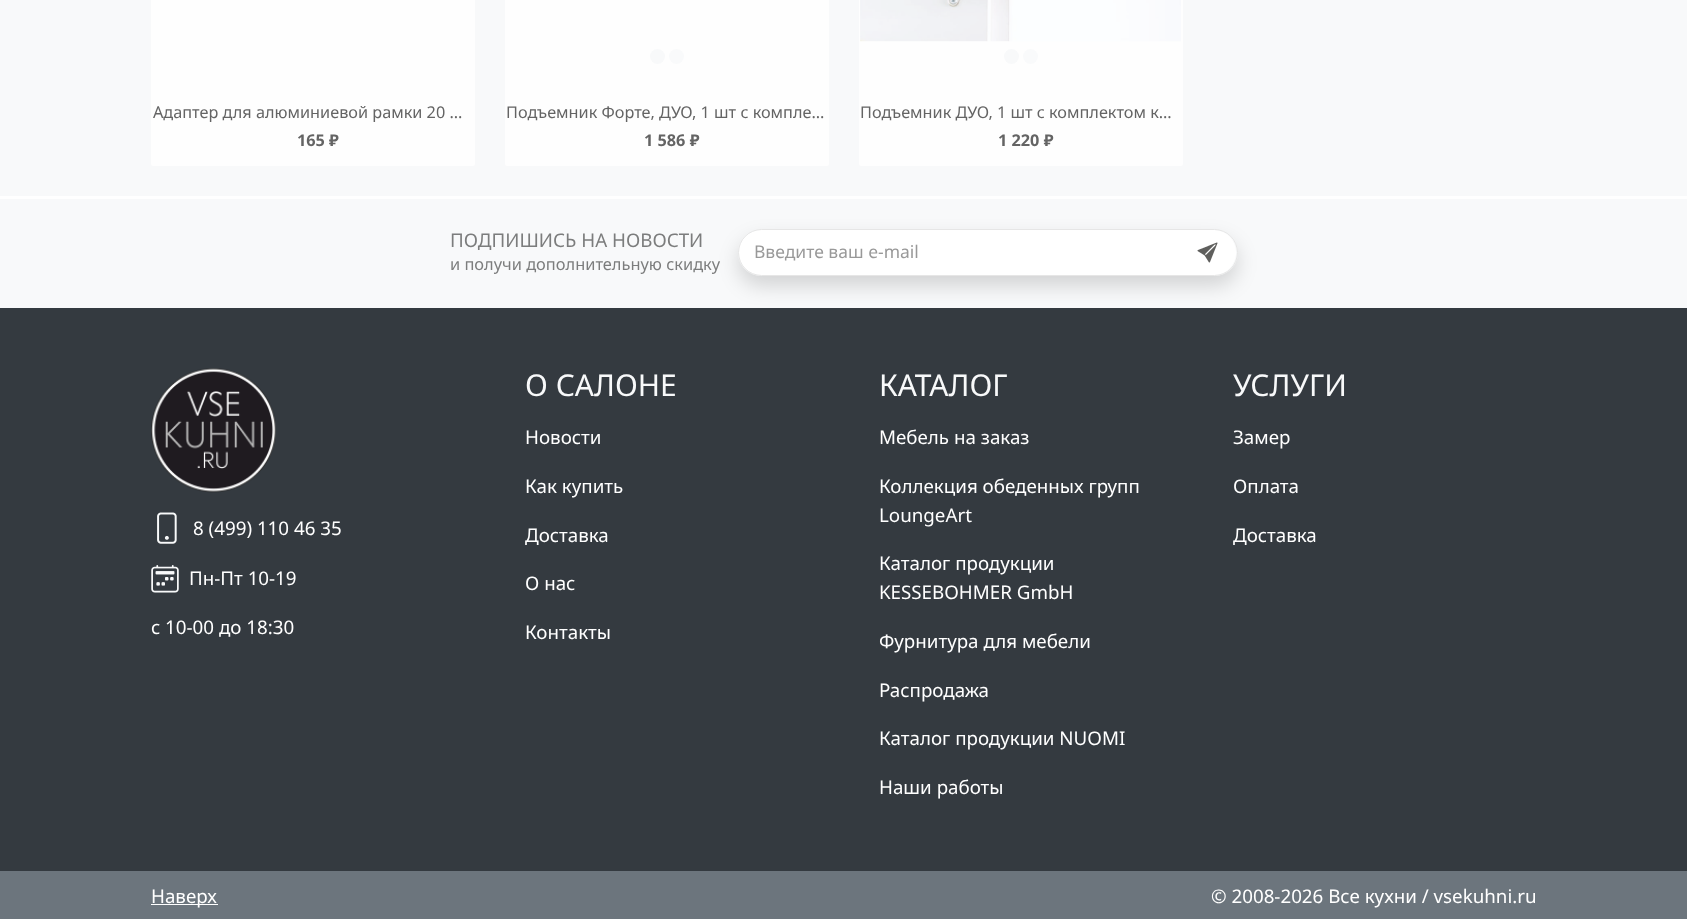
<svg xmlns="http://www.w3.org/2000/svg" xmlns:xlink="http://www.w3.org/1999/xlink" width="1687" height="919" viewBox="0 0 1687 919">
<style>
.cls-1{font:16.25px Noto Sans;fill:#646464}
.cls-2{font:bold 16.25px Noto Sans;fill:#646464}
.cls-3{font:18.75px Noto Sans;fill:#7c7d7d}
.cls-4{font:16.4px Noto Sans;fill:#7c7d7d}
.cls-5{font:17.5px Noto Sans;fill:#999999}
.cls-6{font:30px Noto Sans;fill:#f8f9fa}
.cls-7{font:18.75px Noto Sans;fill:#ffffff}
</style>
<defs>
<clipPath id="clip1"><path d="M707 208H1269V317H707ZM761.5 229H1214.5C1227.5 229 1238 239.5 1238 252.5C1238 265.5 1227.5 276 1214.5 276H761.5C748.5 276 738 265.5 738 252.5C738 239.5 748.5 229 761.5 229Z" clip-rule="evenodd"/></clipPath>
</defs>
<rect width="100%" height="100%" fill="#ffffff"/>
<rect fill="#f8f9fa" x="0" y="0" width="1687" height="196"/>
<rect fill="#fefefe" x="151" y="-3" width="324" height="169" rx="2.5"/>
<rect fill="#fefefe" x="505" y="-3" width="324" height="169" rx="2.5"/>
<circle fill="#f8f9fa" cx="657.5" cy="56.5" r="7.5"/>
<circle fill="#f9fafb" cx="676.5" cy="56.5" r="7.5"/>
<rect fill="#fefefe" x="859" y="-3" width="324" height="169" rx="2.5"/>
<image xlink:href="image0.png" x="860" y="0" width="321" height="42"/>
<circle fill="#f8f9fa" cx="1011.5" cy="56.5" r="7.5"/>
<circle fill="#f9fafb" cx="1030.5" cy="56.5" r="7.5"/>
<rect fill="#f8f9fa" x="0" y="199" width="1687" height="109"/>
<rect fill="#343a40" x="0" y="308" width="1687" height="563"/>
<g clip-path="url(#clip1)">
<rect fill="#000000" fill-opacity="0.15" filter="blur(10px)" x="738" y="239" width="500" height="47" rx="23.5"/>
</g>
<rect fill="#ffffff" x="739" y="230" width="497" height="45" rx="22.5"/>
<rect fill="none" stroke="#e6e6e6" x="738.5" y="229.5" width="499" height="46" rx="23"/>
<image xlink:href="image1.png" x="1197" y="242" width="21" height="21"/>
<image xlink:href="image2.png" x="151" y="368" width="125" height="125"/>
<image xlink:href="image3.png" x="157" y="512" width="20" height="32"/>
<image xlink:href="image4.png" x="151" y="565" width="28" height="28"/>
<rect fill="#6c757d" x="0" y="871" width="1687" height="48"/>
<rect fill="#ffffff" x="151" y="904" width="67" height="1"/>
<text class="cls-1" x="153" y="118">Адаптер для алюминиевой рамки 20 …</text>
<text class="cls-2" x="297" y="146">165 ₽</text>
<text class="cls-1" x="506" y="118">Подъемник Форте, ДУО, 1 шт с компле…</text>
<text class="cls-2" x="644" y="146">1 586 ₽</text>
<text class="cls-1" x="860" y="118">Подъемник ДУО, 1 шт с комплектом к…</text>
<text class="cls-2" x="998" y="146">1 220 ₽</text>
<text class="cls-3" x="450" y="247">ПОДПИШИСЬ НА НОВОСТИ</text>
<text class="cls-4" x="450" y="270">и получи дополнительную скидку</text>
<text class="cls-5" x="754" y="258">Введите ваш e-mail</text>
<text class="cls-6" x="525" y="396">О САЛОНЕ</text>
<text class="cls-7" x="525" y="444">Новости</text>
<text class="cls-7" x="525" y="493">Как купить</text>
<text class="cls-7" x="525" y="542">Доставка</text>
<text class="cls-7" x="525" y="590">О нас</text>
<text class="cls-7" x="525" y="639">Контакты</text>
<text class="cls-6" x="879" y="396">КАТАЛОГ</text>
<text class="cls-7" x="879" y="444">Мебель на заказ</text>
<text class="cls-7"><tspan x="879" y="493">Коллекция обеденных групп</tspan><tspan x="879" y="522">LoungeArt</tspan></text>
<text class="cls-7"><tspan x="879" y="570">Каталог продукции</tspan><tspan x="879" y="599">KESSEBOHMER GmbH</tspan></text>
<text class="cls-7" x="879" y="648">Фурнитура для мебели</text>
<text class="cls-7" x="879" y="697">Распродажа</text>
<text class="cls-7" x="879" y="745">Каталог продукции NUOMI</text>
<text class="cls-7" x="879" y="794">Наши работы</text>
<text class="cls-6" x="1233" y="396">УСЛУГИ</text>
<text class="cls-7" x="1233" y="444">Замер</text>
<text class="cls-7" x="1233" y="493">Оплата</text>
<text class="cls-7" x="1233" y="542">Доставка</text>
<text class="cls-7" x="193" y="535">8 (499) 110 46 35</text>
<text class="cls-7" x="189" y="585">Пн-Пт 10-19</text>
<text class="cls-7" x="151" y="634">с 10-00 до 18:30</text>
<text class="cls-7" x="151" y="903">Наверх</text>
<text class="cls-7" x="1211" y="903">© 2008-2026 Все кухни / vsekuhni.ru</text>
</svg>
